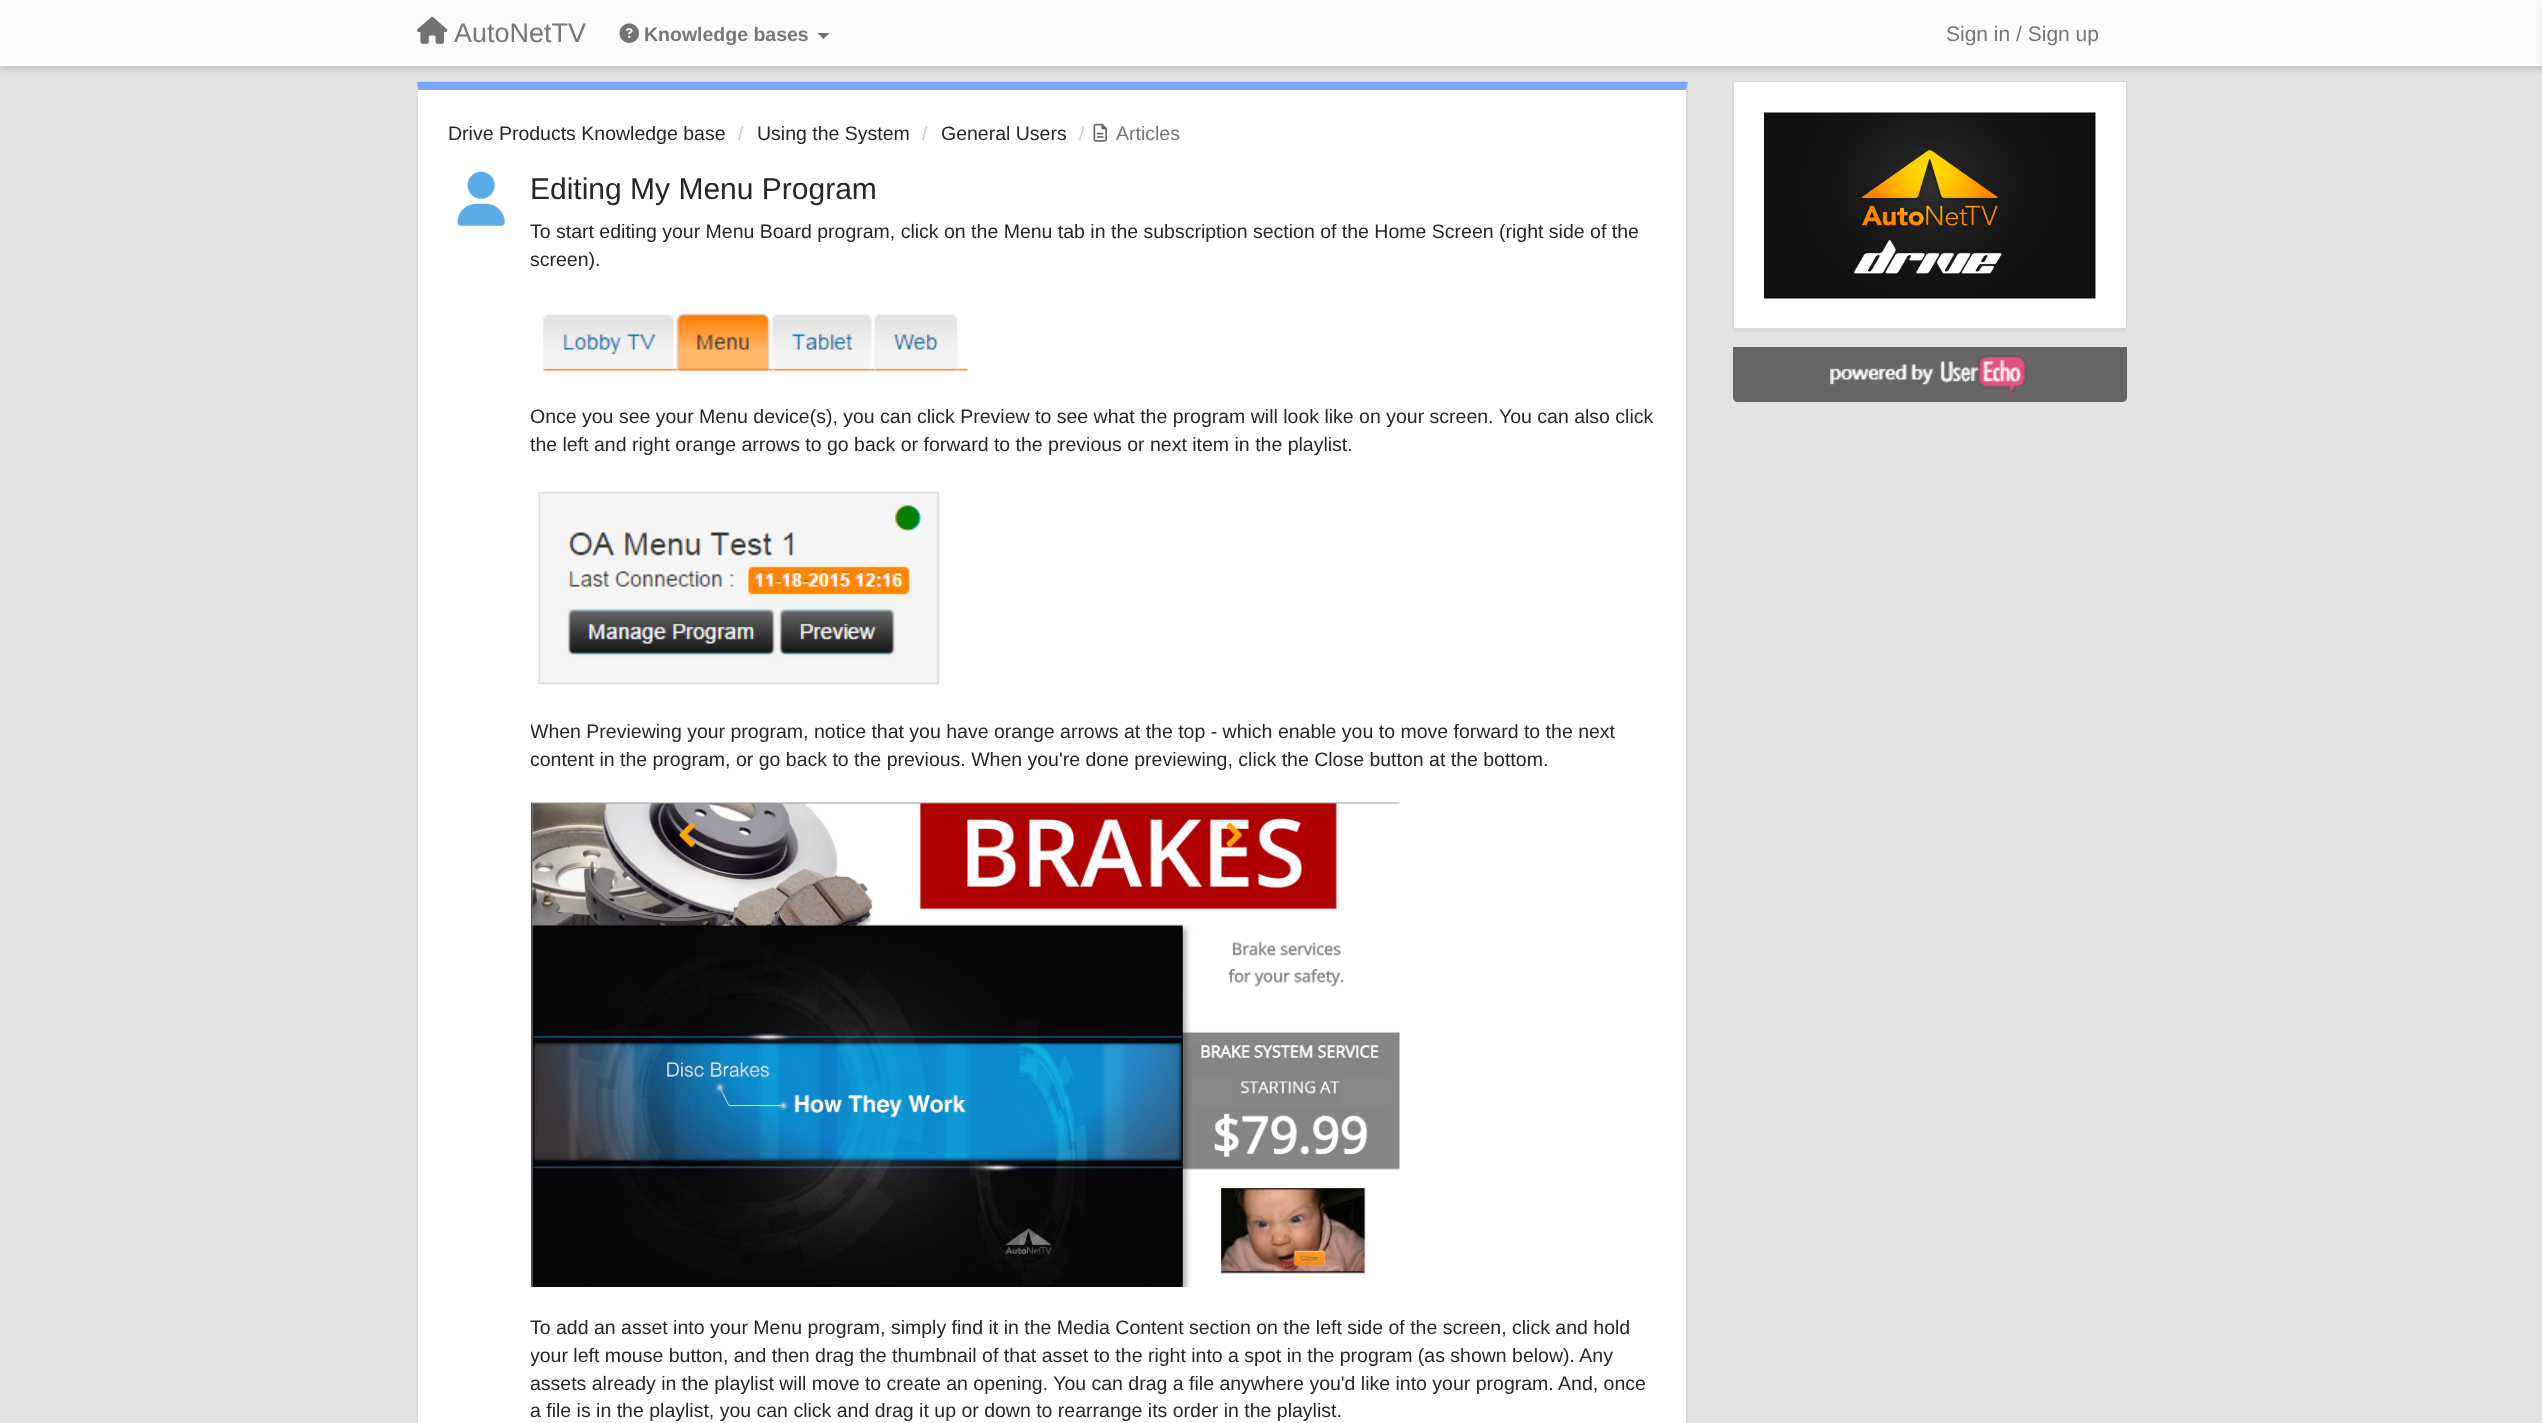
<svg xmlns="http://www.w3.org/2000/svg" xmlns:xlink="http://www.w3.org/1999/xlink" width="2542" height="1423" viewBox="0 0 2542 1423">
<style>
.cls-1{font:27px Liberation Sans;fill:#777777}
.cls-2{font:bold 19.5px Liberation Sans;fill:#777777}
.cls-3{font:21px Liberation Sans;fill:#777777}
.cls-4{font:19.5px Liberation Sans;fill:#262626}
.cls-5{font:19.5px Liberation Sans;fill:#cccccc}
.cls-6{font:19.5px Liberation Sans;fill:#777777}
.cls-7{font:30px Liberation Sans;fill:#262626}
</style>
<defs>
<clipPath id="clip1"><rect x="531" y="219" width="1125" height="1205"/></clipPath>
</defs>
<rect width="100%" height="100%" fill="#e3e3e3"/>
<rect fill="#000000" fill-opacity="0.15" filter="blur(3px)" x="0" y="3" width="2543" height="66"/>
<rect fill="#fbfbfb" x="0" y="0" width="2542" height="66"/>
<image xlink:href="image0.png" x="417" y="16" width="31" height="28"/>
<image xlink:href="image1.png" x="619" y="23" width="20" height="20"/>
<path fill="#737373" d="M817.5 33H829.5L823.5 39Z"/>
<rect fill="#000000" fill-opacity="0.15" filter="blur(3px)" x="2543" y="3" width="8" height="66"/>
<rect fill="#d8d8d8" x="417" y="81" width="1271" height="2"/>
<path fill="#ffffff" d="M418 90H1686V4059C1686 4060 1685 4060 1683 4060H422C420 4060 418 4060 418 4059Z"/>
<path fill="#76a7fa" d="M417 82L418 90H1686L1688 82Z"/>
<path fill="#d8d8d8" d="M1688 82V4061L1687 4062L1686 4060V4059V90Z"/>
<path fill="#d8d8d8" d="M418 90L417 82V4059L418 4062L419 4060L418 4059Z"/>
<image xlink:href="image2.png" x="1093" y="123" width="14" height="19"/>
<image xlink:href="image3.png" x="457" y="171" width="48" height="55"/>
<image xlink:href="image4.png" x="542" y="313" width="426" height="58"/>
<image xlink:href="image5.png" x="538" y="491" width="402" height="194"/>
<image xlink:href="image6.png" x="531" y="802" width="869" height="485"/>
<rect fill="#d8d8d8" x="1733" y="81" width="394" height="1"/>
<path fill="#ffffff" d="M1734 82H2126V327C2126 328 2124 328 2122 328H1737C1735 328 1734 328 1734 327Z"/>
<path fill="#d8d8d8" fill-rule="evenodd" d="M1732 82H2127V327C2127 329 2125 332 2122 332H1737C1735 332 1732 329 1732 327ZM1734 82H2126V327C2126 328 2124 328 2122 328H1737C1735 328 1734 328 1734 327Z"/>
<image xlink:href="image7.png" x="1764" y="112" width="332" height="187"/>
<path fill="#666666" d="M1733 347H2127V397C2127 400 2125 402 2122 402H1738C1735 402 1733 400 1733 397Z"/>
<image xlink:href="image8.png" x="1830" y="355" width="197" height="39"/>
<text class="cls-1" x="454" y="42">AutoNetTV</text>
<text class="cls-2" x="644" y="41">Knowledge bases</text>
<text class="cls-3" x="1946" y="41">Sign in / Sign up</text>
<text class="cls-4" x="448" y="140">Drive Products Knowledge base</text>
<text class="cls-5" x="738" y="140">/</text>
<text class="cls-4" x="757" y="140">Using the System</text>
<text class="cls-5" x="922" y="140">/</text>
<text class="cls-4" x="941" y="140">General Users</text>
<text class="cls-5" x="1079" y="140">/</text>
<text class="cls-6" x="1116" y="140">Articles</text>
<text class="cls-7" x="530" y="199">Editing My Menu Program</text>
<text class="cls-4"><tspan x="530" y="238">To start editing your Menu Board program, click on the Menu tab in the subscription section of the Home Screen (right side of the</tspan><tspan x="530" y="266">screen).</tspan></text>
<text class="cls-4" x="530" y="423">Once you see your Menu device(s), you can click Preview to see what the program will look like on your screen.</text>
<text class="cls-4" x="1499" y="423">You can also click</text>
<text class="cls-4" x="530" y="451">the left and right orange arrows to go back or forward to the previous or next item in the playlist.</text>
<g clip-path="url(#clip1)">
<text class="cls-4" x="530" y="738">When Previewing your program, notice that you have orange arrows at the top - which enable you to move forward to the next</text>
</g>
<text class="cls-4" x="530" y="766">content in the program, or go back to the previous. When you're done previewing, click the Close button at the bottom.</text>
<text class="cls-4" x="530" y="1334">To add an asset into your Menu program, simply find it in the Media Content section on the left side of the screen, click and hold</text>
<g clip-path="url(#clip1)">
<text class="cls-4" x="530" y="1362">your left mouse button, and then drag the thumbnail of that asset to the right into a spot in the program (as shown below). Any</text>
</g>
<text class="cls-4"><tspan x="530" y="1390">assets already in the playlist will move to create an opening. You can drag a file anywhere you'd like into your program. And, once</tspan><tspan x="530" y="1417">a file is in the playlist, you can click and drag it up or down to rearrange its order in the playlist.</tspan></text>
</svg>
